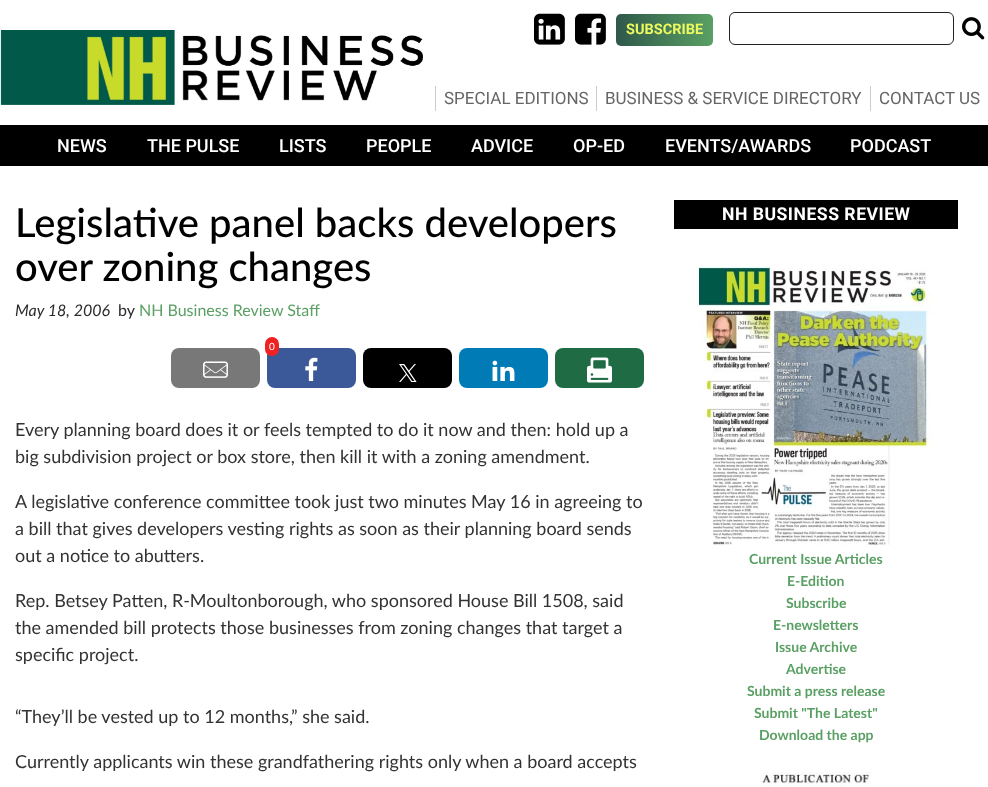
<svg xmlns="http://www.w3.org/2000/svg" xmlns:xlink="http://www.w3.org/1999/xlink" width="988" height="787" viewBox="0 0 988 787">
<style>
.cls-1{font:bold 14.5px Roboto;fill:#ecf95f}
.cls-2{font:17px Roboto;fill:#666666}
.cls-3{font:500 18px Roboto;fill:#ffffff}
.cls-4{font:500 40px Lato;fill:#000000}
.cls-5{font:italic 16px Lato;fill:#2b2b2b}
.cls-6{font:16px Lato;fill:#2b2b2b}
.cls-7{font:16px Lato;fill:#5aa064}
.cls-8{font:10px Lato;fill:#ffffff}
.cls-9{font:18px Lato;fill:#333333}
.cls-10{font:bold 17.6px Roboto;letter-spacing:0.5px;fill:#ffffff}
.cls-11{font:bold 14px Lato;fill:#5aa064}
</style>
<defs>
<linearGradient id="g1" gradientUnits="userSpaceOnUse" x1="616" y1="30" x2="713" y2="30"><stop offset="0" stop-color="#2f584a"/><stop offset="1" stop-color="#5aa064"/></linearGradient>
</defs>
<rect width="100%" height="100%" fill="#ffffff"/>
<image xlink:href="image0.png" x="0" y="30" width="423" height="75"/>
<image xlink:href="image1.png" x="534" y="13" width="31" height="32"/>
<image xlink:href="image2.png" x="575" y="13" width="31" height="32"/>
<rect fill="url(#g1)" x="616" y="14" width="97" height="32" rx="5"/>
<rect fill="none" stroke="#222222" x="729.5" y="12.5" width="224" height="32" rx="5.5"/>
<image xlink:href="image3.png" x="962" y="17" width="23" height="23"/>
<rect fill="#cccccc" x="435" y="86" width="1" height="25"/>
<rect fill="#cccccc" x="596" y="86" width="1" height="25"/>
<rect fill="#cccccc" x="870" y="86" width="1" height="25"/>
<rect fill="#000000" x="0" y="125" width="988" height="41"/>
<rect fill="#3b5998" x="267" y="348" width="89" height="40" rx="8"/>
<rect fill="#f22121" x="265" y="337" width="14" height="19" rx="7"/>
<image xlink:href="image4.png" x="305" y="357" width="13" height="24"/>
<rect fill="#787878" x="171" y="348" width="89" height="40" rx="8"/>
<image xlink:href="image5.png" x="203" y="361" width="25" height="17"/>
<rect fill="#000000" x="363" y="348" width="89" height="40" rx="8"/>
<image xlink:href="image6.png" x="399" y="364" width="18" height="18"/>
<rect fill="#007bb6" x="459" y="348" width="89" height="40" rx="8"/>
<image xlink:href="image7.png" x="492" y="360" width="23" height="21"/>
<rect fill="#1f6b43" x="555" y="348" width="89" height="40" rx="8"/>
<image xlink:href="image8.png" x="587" y="357" width="25" height="26"/>
<rect fill="#000000" x="674" y="200" width="284" height="29"/>
<image xlink:href="image9.png" x="699" y="266" width="234" height="279"/>
<image xlink:href="image10.png" x="760" y="772" width="111" height="15"/>
<text class="cls-1" x="626" y="34">SUBSCRIBE</text>
<text class="cls-2" x="444" y="104">SPECIAL EDITIONS</text>
<text class="cls-2" x="605" y="104">BUSINESS &amp; SERVICE DIRECTORY</text>
<text class="cls-2" x="879" y="104">CONTACT US</text>
<text class="cls-3" x="57" y="152">NEWS</text>
<text class="cls-3" x="147" y="152">THE PULSE</text>
<text class="cls-3" x="279" y="152">LISTS</text>
<text class="cls-3" x="366" y="152">PEOPLE</text>
<text class="cls-3" x="471" y="152">ADVICE</text>
<text class="cls-3" x="573" y="152">OP-ED</text>
<text class="cls-3" x="665" y="152">EVENTS/AWARDS</text>
<text class="cls-3" x="850" y="152">PODCAST</text>
<text class="cls-4"><tspan x="15" y="237">Legislative panel backs developers</tspan><tspan x="15" y="281">over zoning changes</tspan></text>
<text class="cls-5" x="15" y="316">May 18, 2006</text>
<text class="cls-6" x="118" y="316">by</text>
<text class="cls-7" x="139" y="316">NH Business Review Staff</text>
<text class="cls-8" x="269" y="350">0</text>
<text class="cls-9"><tspan x="15" y="436">Every planning board does it or feels tempted to do it now and then: hold up a</tspan><tspan x="15" y="463">big subdivision project or box store, then kill it with a zoning amendment.</tspan></text>
<text class="cls-9"><tspan x="15" y="508">A legislative conference committee took just two minutes May 16 in agreeing to</tspan><tspan x="15" y="535">a bill that gives developers vesting rights as soon as their planning board sends</tspan><tspan x="15" y="562">out a notice to abutters.</tspan></text>
<text class="cls-9"><tspan x="15" y="607">Rep. Betsey Patten, R-Moultonborough, who sponsored House Bill 1508, said</tspan><tspan x="15" y="634">the amended bill protects those businesses from zoning changes that target a</tspan><tspan x="15" y="661">specific project.</tspan></text>
<text class="cls-9" x="15" y="723">“They’ll be vested up to 12 months,” she said.</text>
<text class="cls-9" x="15" y="768">Currently applicants win these grandfathering rights only when a board accepts</text>
<text class="cls-10" x="722" y="220">NH BUSINESS REVIEW</text>
<text class="cls-11" x="749" y="564">Current Issue Articles</text>
<text class="cls-11" x="787" y="586">E-Edition</text>
<text class="cls-11" x="786" y="608">Subscribe</text>
<text class="cls-11" x="773" y="630">E-newsletters</text>
<text class="cls-11" x="775" y="652">Issue Archive</text>
<text class="cls-11" x="786" y="674">Advertise</text>
<text class="cls-11" x="747" y="696">Submit a press release</text>
<text class="cls-11" x="754" y="718">Submit "The Latest"</text>
<text class="cls-11" x="759" y="740">Download the app</text>
</svg>
